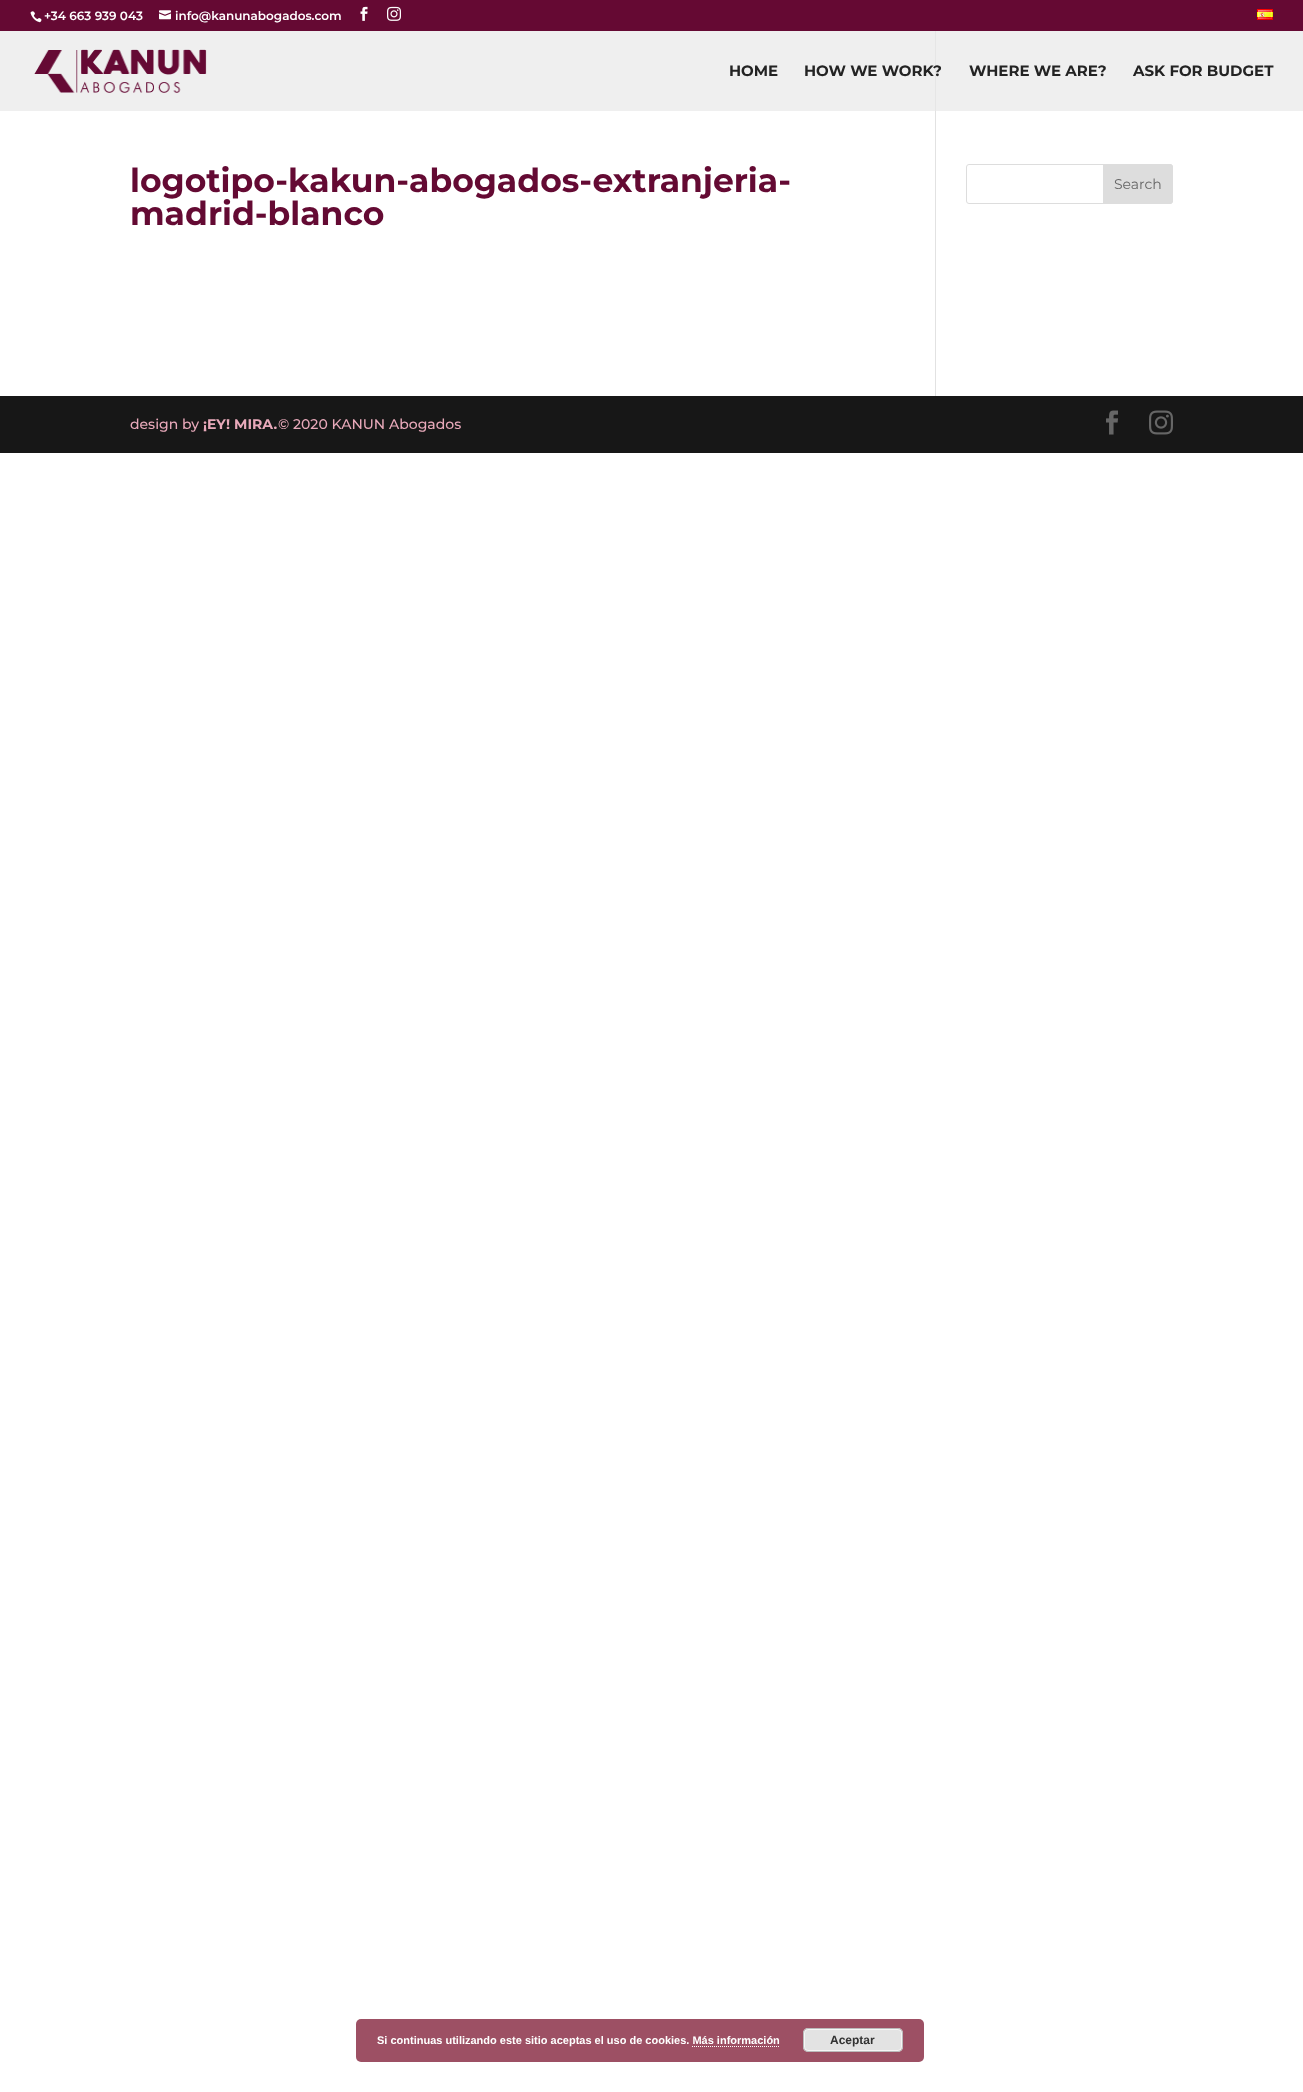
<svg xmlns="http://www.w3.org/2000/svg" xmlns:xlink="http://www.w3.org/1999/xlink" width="1303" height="2092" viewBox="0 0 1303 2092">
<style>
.cls-1{font:600 12px Montserrat;fill:#ffffff}
.cls-2{font:bold 15px Montserrat;fill:#232323}
.cls-3{font:bold 33px Montserrat;fill:#640a33}
.cls-4{font:14px Montserrat;fill:#666666}
.cls-5{font:500 14px Montserrat;fill:#e8a9ba}
.cls-6{font:bold 14px Montserrat;fill:#e8a9ba}
.cls-7{font:bold 11px Liberation Sans;fill:#ffffff}
.cls-8{font:bold 12px Liberation Sans;fill:#333333}
</style>
<rect width="100%" height="100%" fill="#ffffff"/>
<rect fill="#efefef" x="0" y="31" width="1303" height="80"/>
<rect fill="#650933" x="0" y="0" width="1303" height="31"/>
<image xlink:href="image0.png" x="30" y="11" width="12" height="12"/>
<image xlink:href="image1.png" x="159" y="10" width="12" height="10"/>
<image xlink:href="image2.png" x="360" y="6" width="8" height="15"/>
<image xlink:href="image3.png" x="387" y="6" width="14" height="15"/>
<image xlink:href="image4.png" x="1257" y="9" width="16" height="11"/>
<image xlink:href="image5.png" x="34" y="49" width="173" height="44"/>
<rect fill="#e2e2e2" x="935" y="111" width="1" height="285"/>
<rect fill="#e6e6e6" x="935" y="31" width="1" height="80"/>
<rect fill="none" stroke="#dddddd" x="966.5" y="164.5" width="206" height="39" rx="2.5"/>
<path fill="#dddddd" stroke="#dddddd" d="M1103.5 164.5H1170C1171.5 164.5 1172.5 165.5 1172.5 167V201C1172.5 202.5 1171.5 203.5 1170 203.5H1103.5Z"/>
<rect fill="#171717" x="0" y="396" width="1303" height="57"/>
<image xlink:href="image6.png" x="1106" y="410" width="12" height="25"/>
<image xlink:href="image7.png" x="1149" y="410" width="24" height="25"/>
<rect fill="#9d5064" x="356" y="2019" width="568" height="43" rx="5"/>
<rect fill="#e3e3e3" x="803" y="2028" width="100" height="24" rx="5"/>
<rect fill="none" stroke="#f6f6f6" x="804.5" y="2029.5" width="97" height="21" rx="3.5"/>
<rect fill="none" stroke="#bbbbbb" x="803.5" y="2028.5" width="99" height="23" rx="4.5"/>
<path fill="none" stroke="#ffffff" stroke-dasharray="1 1" d="M692 2046.5H780"/>
<text class="cls-1" x="44" y="20">+34 663 939 043</text>
<text class="cls-1" x="175" y="20">info@kanunabogados.com</text>
<text class="cls-2" x="729" y="76">HOME</text>
<text class="cls-2" x="804" y="76">HOW WE WORK?</text>
<text class="cls-2" x="969" y="76">WHERE WE ARE?</text>
<text class="cls-2" x="1133" y="76">ASK FOR BUDGET</text>
<text class="cls-3"><tspan x="130" y="192">logotipo-kakun-abogados-extranjeria-</tspan><tspan x="130" y="225">madrid-blanco</tspan></text>
<text class="cls-4" x="1114" y="189">Search</text>
<text class="cls-5" x="130" y="429">design by</text>
<text class="cls-6" x="203" y="429">¡EY! MIRA.</text>
<text class="cls-5" x="278" y="429">© 2020 KANUN Abogados</text>
<text class="cls-7" x="377" y="2044">Si continuas utilizando este sitio aceptas el uso de cookies. Más información</text>
<text class="cls-8" x="830" y="2044">Aceptar</text>
</svg>
